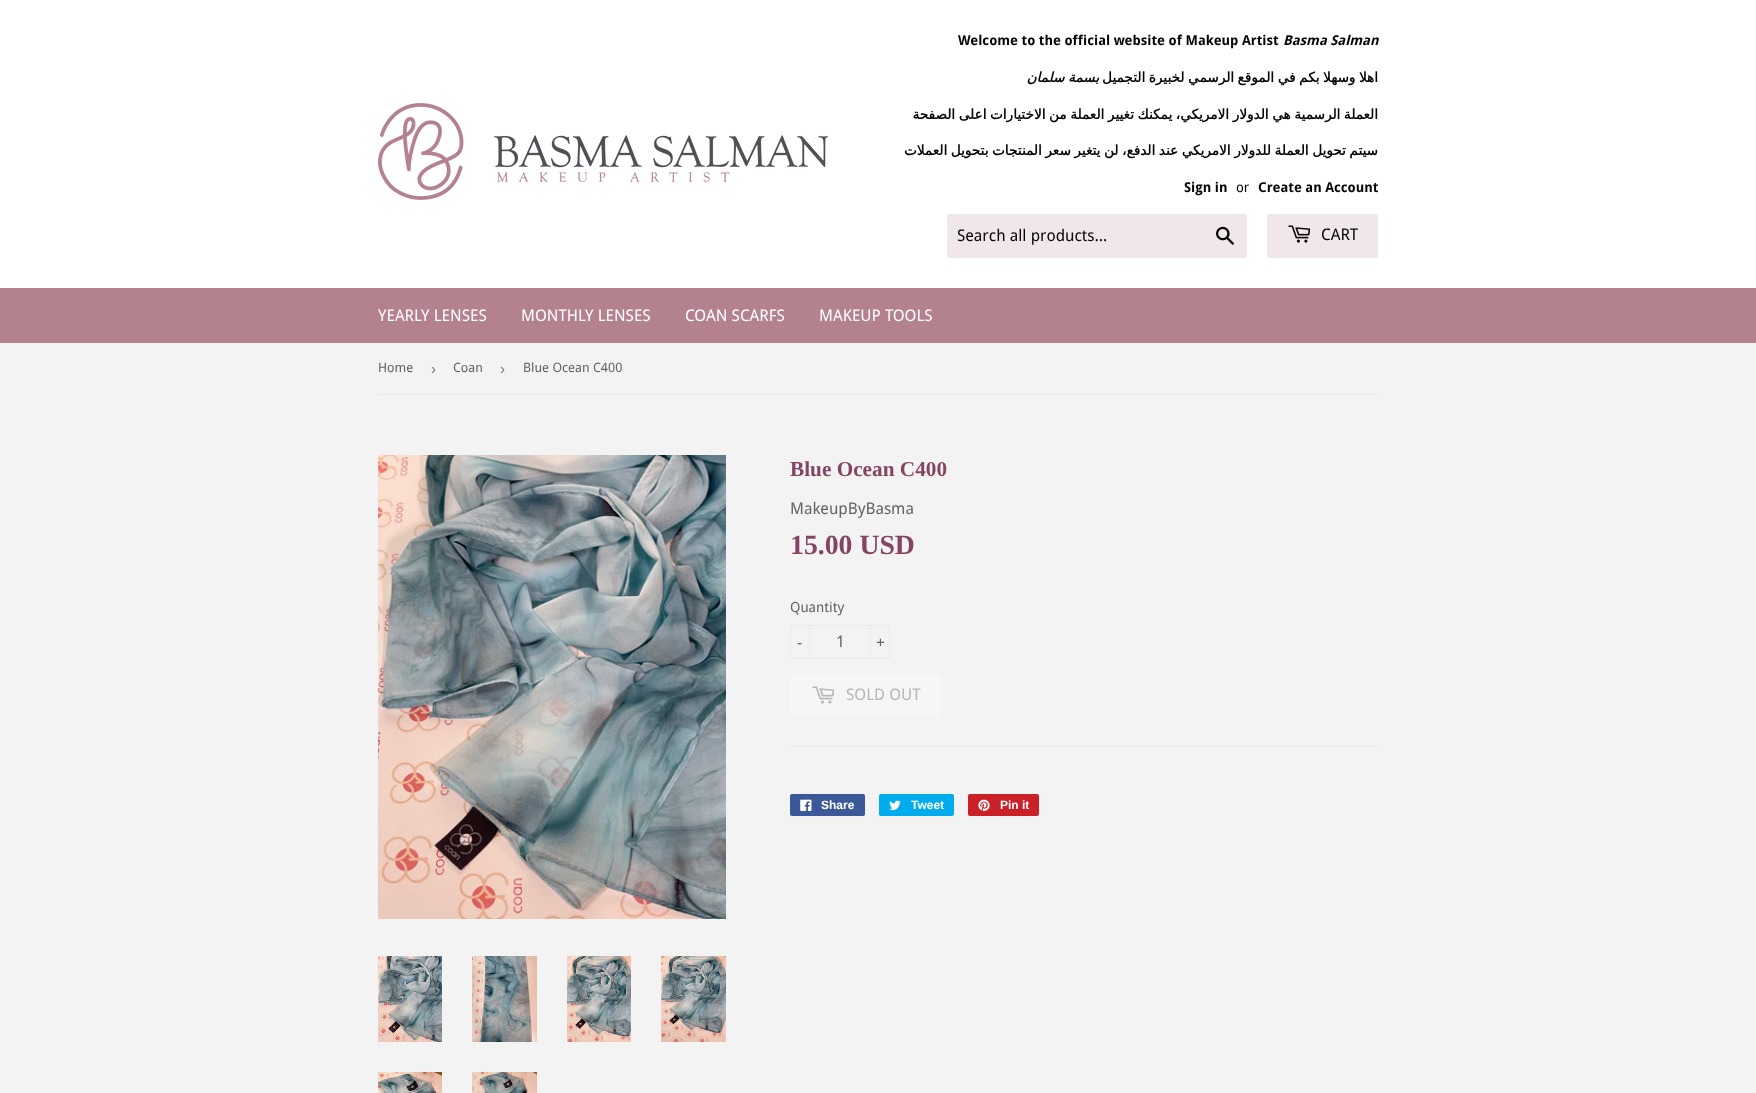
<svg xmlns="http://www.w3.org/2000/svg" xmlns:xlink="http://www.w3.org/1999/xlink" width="1756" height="1093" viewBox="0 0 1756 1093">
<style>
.cls-1{font:bold 13.6px Droid Sans;fill:#080505}
.cls-2{font:italic bold 13.6px Droid Sans;fill:#080505}
.cls-3{font:italic bold 13.6px DejaVu Sans;direction:rtl;fill:#080505}
.cls-4{font:bold 13.6px DejaVu Sans;direction:rtl;fill:#080505}
.cls-5{font:13.6px Droid Sans;fill:#080505}
.cls-6{font:16px Droid Sans;fill:#080505}
.cls-7{font:16px Droid Sans;fill:#ffffff}
.cls-8{font:13px Droid Sans;fill:#636466}
.cls-9{font:15px Liberation Sans;fill:#767676}
.cls-10{font:bold 21.25px Liberation Serif;fill:#844462}
.cls-11{font:16px Droid Sans;fill:#636466}
.cls-12{font:bold 27.75px Liberation Serif;fill:#844462}
.cls-13{font:14px Droid Sans;fill:#636466}
.cls-14{font:16px Droid Sans;fill:#b6b6b6}
.cls-15{font:bold 12px Liberation Sans;fill:#ffffff}
</style>
<rect width="100%" height="100%" fill="#f3f3f3"/>
<rect fill="#ffffff" x="0" y="0" width="1756" height="288"/>
<image xlink:href="image0.png" x="378" y="103" width="450" height="97"/>
<rect fill="#f0e7e9" x="947" y="214" width="300" height="44" rx="2"/>
<image xlink:href="image1.png" x="1216" y="226" width="18" height="19"/>
<rect fill="#f0e7e9" x="1267" y="214" width="111" height="44" rx="2"/>
<image xlink:href="image2.png" x="1288" y="225" width="23" height="18"/>
<rect fill="#b4818f" x="0" y="288" width="1756" height="55"/>
<rect fill="#ebebe0" x="378" y="394" width="1000" height="1"/>
<image xlink:href="image3.png" x="378" y="455" width="348" height="464"/>
<image xlink:href="image4.png" x="378" y="956" width="64" height="86"/>
<image xlink:href="image5.png" x="472" y="956" width="65" height="86"/>
<image xlink:href="image6.png" x="567" y="956" width="64" height="86"/>
<image xlink:href="image7.png" x="661" y="956" width="65" height="86"/>
<image xlink:href="image8.png" x="378" y="1072" width="64" height="21"/>
<image xlink:href="image9.png" x="472" y="1072" width="65" height="21"/>
<rect fill="none" stroke="#ebebe0" x="790.5" y="625.5" width="99" height="33" rx="1.5"/>
<rect fill="#ebebe0" x="809" y="625" width="1" height="34"/>
<rect fill="#ebebe0" x="870" y="625" width="1" height="34"/>
<rect fill="#f6f6f6" x="790" y="675" width="151" height="41" rx="2"/>
<image xlink:href="image10.png" x="812" y="686" width="23" height="18"/>
<rect fill="#ebebe0" x="790" y="746" width="588" height="1"/>
<rect fill="#3b5998" x="790" y="794" width="75" height="22" rx="2"/>
<image xlink:href="image11.png" x="800" y="799" width="12" height="12"/>
<rect fill="#00aced" x="879" y="794" width="75" height="22" rx="2"/>
<image xlink:href="image12.png" x="889" y="800" width="12" height="10"/>
<rect fill="#cb2027" x="968" y="794" width="71" height="22" rx="2"/>
<image xlink:href="image13.png" x="978" y="799" width="12" height="12"/>
<text class="cls-1" x="958" y="45">Welcome to the official website of Makeup Artist</text>
<text class="cls-2" x="1283" y="45">Basma Salman</text>
<text class="cls-3" x="1099" y="82" word-spacing="-0.75">بسمة سلمان</text>
<text class="cls-4" x="1378" y="82" word-spacing="-0.75">اهلا وسهلا بكم في الموقع الرسمي لخبيرة التجميل</text>
<text class="cls-4" x="1378" y="119" word-spacing="-0.75">العملة الرسمية هي الدولار الامريكي، يمكنك تغيير العملة من الاختيارات اعلى الصفحة</text>
<text class="cls-4" x="1378" y="155" word-spacing="-0.75">سيتم تحويل العملة للدولار الامريكي عند الدفع، لن يتغير سعر المنتجات بتحويل العملات</text>
<text class="cls-1" x="1184" y="192">Sign in</text>
<text class="cls-5" x="1236" y="192">or</text>
<text class="cls-1" x="1258" y="192">Create an Account</text>
<text class="cls-6" x="957" y="241">Search all products...</text>
<text class="cls-6" x="1321" y="240">CART</text>
<text class="cls-7" x="378" y="321">YEARLY LENSES</text>
<text class="cls-7" x="521" y="321">MONTHLY LENSES</text>
<text class="cls-7" x="685" y="321">COAN SCARFS</text>
<text class="cls-7" x="819" y="321">MAKEUP TOOLS</text>
<text class="cls-8" x="378" y="372">Home</text>
<text class="cls-9" x="431" y="374">›</text>
<text class="cls-8" x="453" y="372">Coan</text>
<text class="cls-9" x="500" y="374">›</text>
<text class="cls-8" x="523" y="372">Blue Ocean C400</text>
<text class="cls-10" x="790" y="476">Blue Ocean C400</text>
<text class="cls-11" x="790" y="514">MakeupByBasma</text>
<text class="cls-12" x="790" y="554">15.00 USD</text>
<text class="cls-13" x="790" y="612">Quantity</text>
<text class="cls-11" x="797" y="648">-</text>
<text class="cls-11" x="836" y="647">1</text>
<text class="cls-11" x="876" y="648">+</text>
<text class="cls-14" x="846" y="700">SOLD OUT</text>
<text class="cls-15" x="821" y="809">Share</text>
<text class="cls-15" x="911" y="809">Tweet</text>
<text class="cls-15" x="1000" y="809">Pin it</text>
</svg>
